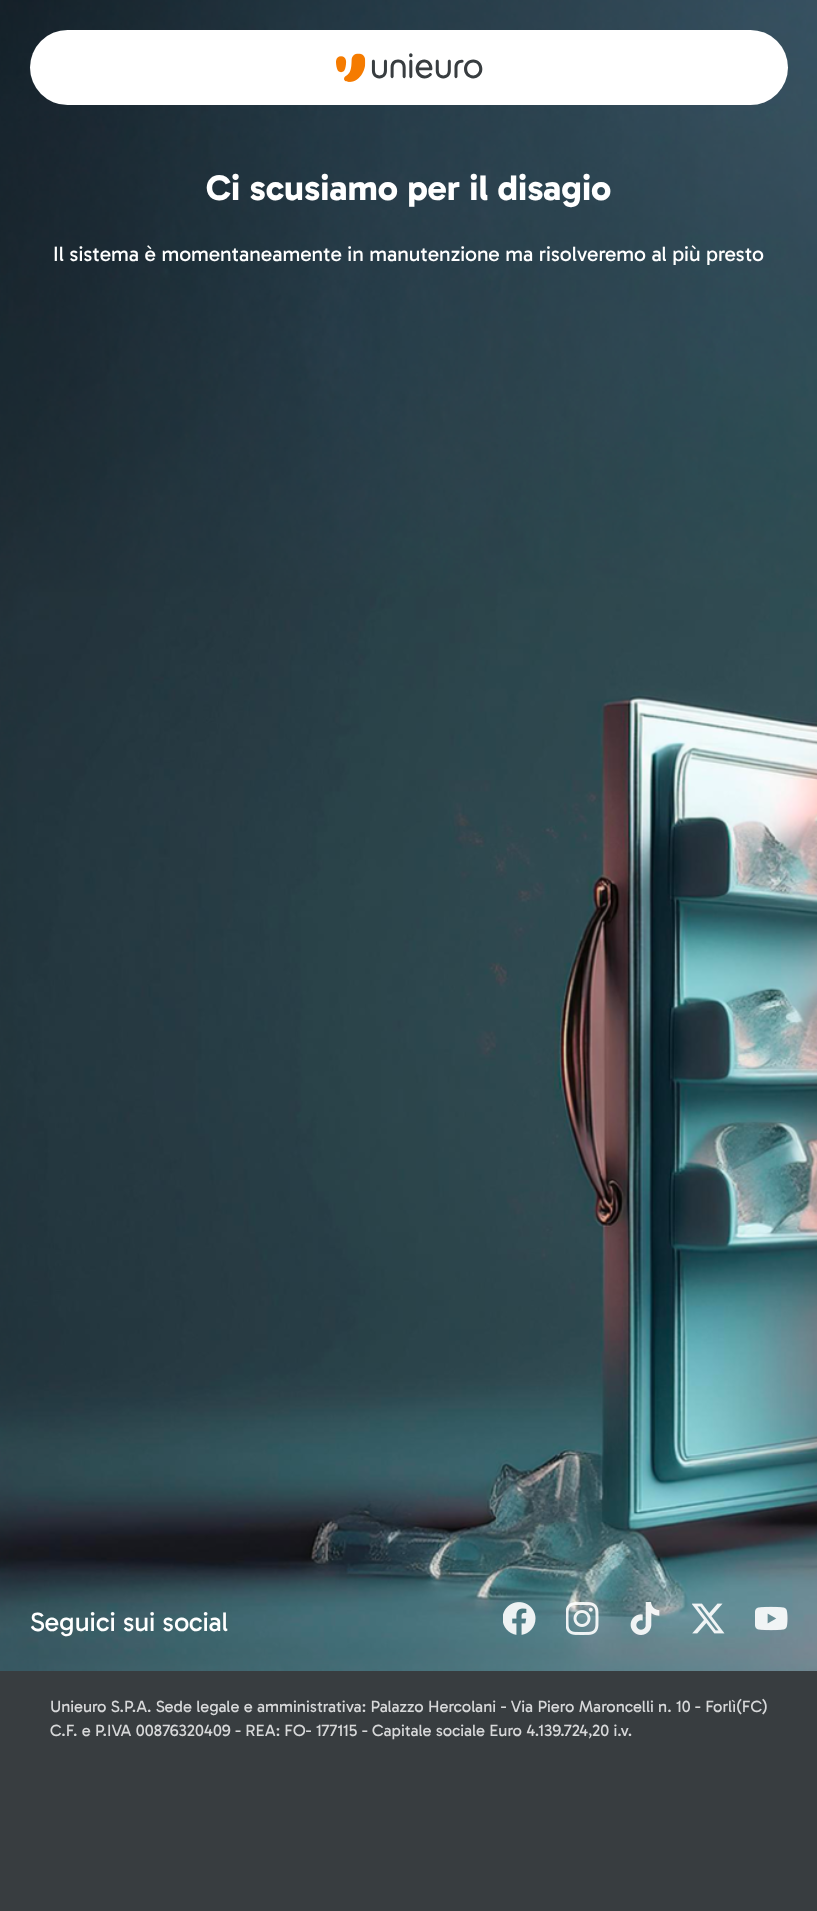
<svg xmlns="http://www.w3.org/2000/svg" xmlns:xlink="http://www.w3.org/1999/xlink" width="817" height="1911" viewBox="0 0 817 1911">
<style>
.cls-1{font:bold 36px Gabarito;fill:#ffffff}
.cls-2{font:21px Gabarito;fill:#ffffff}
.cls-3{font:27px Gabarito;fill:#ffffff}
.cls-4{font:16.5px Gabarito;fill:#d7d8d9}
</style>
<rect width="100%" height="100%" fill="#ffffff"/>
<image xlink:href="image0.png" x="0" y="0" width="817" height="1671"/>
<rect fill="#ffffff" x="30" y="30" width="758" height="75" rx="37.5"/>
<image xlink:href="image1.png" x="336" y="53" width="147" height="29"/>
<image xlink:href="image2.png" x="503" y="1602" width="33" height="33"/>
<image xlink:href="image3.png" x="566" y="1602" width="33" height="33"/>
<image xlink:href="image4.png" x="630" y="1602" width="30" height="33"/>
<image xlink:href="image5.png" x="692" y="1603" width="33" height="31"/>
<image xlink:href="image6.png" x="755" y="1606" width="33" height="25"/>
<rect fill="#383d40" x="0" y="1671" width="817" height="240"/>
<text class="cls-1" x="206" y="200">Ci scusiamo per il disagio</text>
<text class="cls-2" x="53" y="261">Il sistema è momentaneamente in manutenzione ma risolveremo al più presto</text>
<text class="cls-3" x="30" y="1631">Seguici sui social</text>
<text class="cls-4"><tspan x="50" y="1712">Unieuro S.P.A. Sede legale e amministrativa: Palazzo Hercolani - Via Piero Maroncelli n. 10 - Forlì(FC)</tspan><tspan x="50" y="1736">C.F. e P.IVA 00876320409 - REA: FO- 177115 - Capitale sociale Euro 4.139.724,20 i.v.</tspan></text>
</svg>
